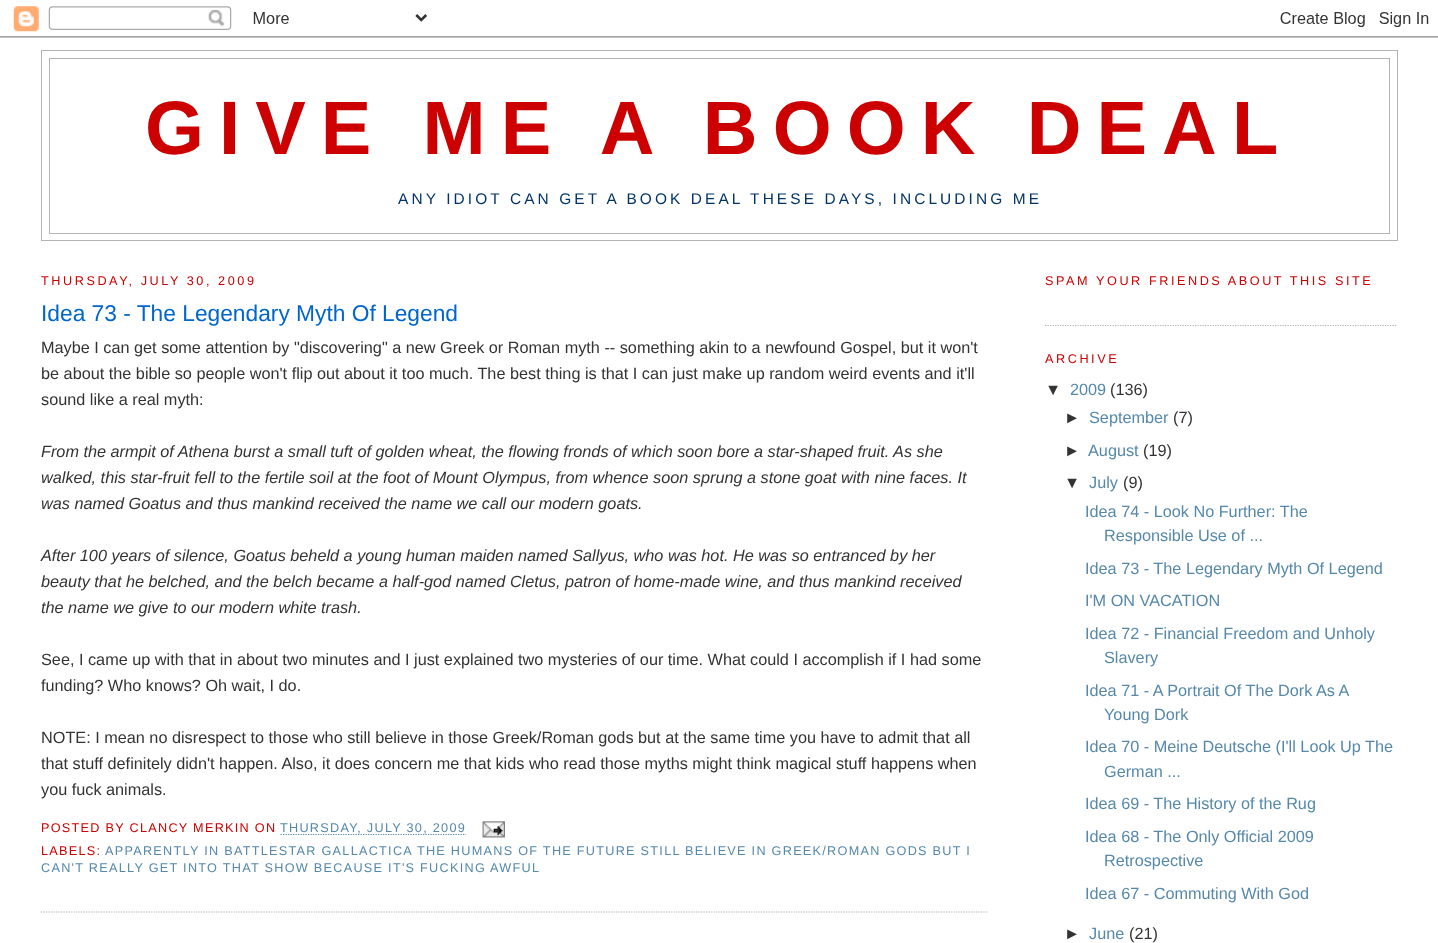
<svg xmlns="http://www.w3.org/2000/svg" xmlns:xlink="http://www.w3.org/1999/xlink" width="1438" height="943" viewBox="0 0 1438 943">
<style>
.cls-1{font:bold 75.75px Liberation Sans;letter-spacing:15.1px;fill:#cc0000}
.cls-2{font:15.45px Liberation Sans;letter-spacing:3.1px;fill:#003366}
.cls-3{font:12.68px Liberation Sans;letter-spacing:2.55px;fill:#cc0000}
.cls-4{font:22.75px Liberation Sans;fill:#0066cc}
.cls-5{font:16.25px Liberation Sans;fill:#333333}
.cls-6{font:italic 16.25px Liberation Sans;fill:#333333}
.cls-7{font:12.68px Liberation Sans;letter-spacing:1.27px;fill:#cc0000}
.cls-8{font:12.68px Liberation Sans;letter-spacing:1.27px;fill:#5588aa}
.cls-9{font:16.25px Liberation Sans;fill:#5588aa}
</style>
<rect width="100%" height="100%" fill="#ffffff"/>
<image xlink:href="image0.png" x="0" y="6" width="1438" height="32"/>
<rect fill="none" stroke="#b3b3b3" x="41.5" y="50.5" width="1356" height="190"/>
<rect fill="none" stroke="#b3b3b3" x="49.5" y="58.5" width="1340" height="175"/>
<path fill="none" stroke="#b3b3b3" stroke-width="1.2" stroke-dasharray="1.25 1.25" d="M41 912H987.5"/>
<path fill="none" stroke="#5588aa" stroke-width="1.2" stroke-dasharray="1.25 1.25" d="M280.5 834.5H466"/>
<image xlink:href="image1.png" x="482" y="821" width="23" height="17"/>
<path fill="none" stroke="#b3b3b3" stroke-width="1.2" stroke-dasharray="1.25 1.25" d="M1045 325.5H1397.5"/>
<text class="cls-1" x="145" y="154">GIVE ME A BOOK DEAL</text>
<text class="cls-2" x="398" y="204">ANY IDIOT CAN GET A BOOK DEAL THESE DAYS, INCLUDING ME</text>
<text class="cls-3" x="41" y="285">THURSDAY, JULY 30, 2009</text>
<text class="cls-4" x="41" y="321">Idea 73 - The Legendary Myth Of Legend</text>
<text class="cls-5"><tspan x="41" y="353">Maybe I can get some attention by "discovering" a new Greek or Roman myth -- something akin to a newfound Gospel, but it won't</tspan><tspan x="41" y="379">be about the bible so people won't flip out about it too much. The best thing is that I can just make up random weird events and it'll</tspan><tspan x="41" y="405">sound like a real myth:</tspan></text>
<text class="cls-6"><tspan x="41" y="457">From the armpit of Athena burst a small tuft of golden wheat, the flowing fronds of which soon bore a star-shaped fruit. As she</tspan><tspan x="41" y="483">walked, this star-fruit fell to the fertile soil at the foot of Mount Olympus, from whence soon sprung a stone goat with nine faces. It</tspan><tspan x="41" y="509">was named Goatus and thus mankind received the name we call our modern goats.</tspan></text>
<text class="cls-6"><tspan x="41" y="561">After 100 years of silence, Goatus beheld a young human maiden named Sallyus, who was hot. He was so entranced by her</tspan><tspan x="41" y="587">beauty that he belched, and the belch became a half-god named Cletus, patron of home-made wine, and thus mankind received</tspan><tspan x="41" y="613">the name we give to our modern white trash.</tspan></text>
<text class="cls-5"><tspan x="41" y="665">See, I came up with that in about two minutes and I just explained two mysteries of our time. What could I accomplish if I had some</tspan><tspan x="41" y="691">funding? Who knows? Oh wait, I do.</tspan></text>
<text class="cls-5"><tspan x="41" y="743">NOTE: I mean no disrespect to those who still believe in those Greek/Roman gods but at the same time you have to admit that all</tspan><tspan x="41" y="769">that stuff definitely didn't happen. Also, it does concern me that kids who read those myths might think magical stuff happens when</tspan><tspan x="41" y="795">you fuck animals.</tspan></text>
<text class="cls-7" x="41" y="832">POSTED BY CLANCY MERKIN ON</text>
<text class="cls-8" x="280" y="832">THURSDAY, JULY 30, 2009</text>
<text class="cls-7" x="41" y="855">LABELS:</text>
<text class="cls-8" x="105" y="855">APPARENTLY IN BATTLESTAR GALLACTICA THE HUMANS OF THE FUTURE STILL BELIEVE IN GREEK/ROMAN GODS BUT I</text>
<text class="cls-8" x="41" y="872">CAN'T REALLY GET INTO THAT SHOW BECAUSE IT'S FUCKING AWFUL</text>
<text class="cls-3" x="1045" y="285">SPAM YOUR FRIENDS ABOUT THIS SITE</text>
<text class="cls-3" x="1045" y="363">ARCHIVE</text>
<text class="cls-5" x="1045" y="395">▼</text>
<text class="cls-9" x="1070" y="395">2009</text>
<text class="cls-5" x="1110" y="395">(136)</text>
<text class="cls-5" x="1064" y="423">►</text>
<text class="cls-9" x="1089" y="423">September</text>
<text class="cls-5" x="1173" y="423">(7)</text>
<text class="cls-5" x="1064" y="456">►</text>
<text class="cls-9" x="1088" y="456">August</text>
<text class="cls-5" x="1143" y="456">(19)</text>
<text class="cls-5" x="1064" y="488">▼</text>
<text class="cls-9" x="1089" y="488">July</text>
<text class="cls-5" x="1123" y="488">(9)</text>
<text class="cls-9" x="1085" y="517">Idea 74 - Look No Further: The</text>
<text class="cls-9" x="1104" y="541">Responsible Use of ...</text>
<text class="cls-9"><tspan x="1085" y="574">Idea 73 - The Legendary Myth Of Legend</tspan><tspan x="1085" y="606">I'M ON VACATION</tspan></text>
<text class="cls-9" x="1085" y="639">Idea 72 - Financial Freedom and Unholy</text>
<text class="cls-9" x="1104" y="663">Slavery</text>
<text class="cls-9" x="1085" y="696">Idea 71 - A Portrait Of The Dork As A</text>
<text class="cls-9" x="1104" y="720">Young Dork</text>
<text class="cls-9" x="1085" y="752">Idea 70 - Meine Deutsche (I'll Look Up The</text>
<text class="cls-9" x="1104" y="777">German ...</text>
<text class="cls-9" x="1085" y="809">Idea 69 - The History of the Rug</text>
<text class="cls-9" x="1085" y="842">Idea 68 - The Only Official 2009</text>
<text class="cls-9" x="1104" y="866">Retrospective</text>
<text class="cls-9" x="1085" y="899">Idea 67 - Commuting With God</text>
<text class="cls-5" x="1064" y="939">►</text>
<text class="cls-9" x="1089" y="939">June</text>
<text class="cls-5" x="1129" y="939">(21)</text>
</svg>
